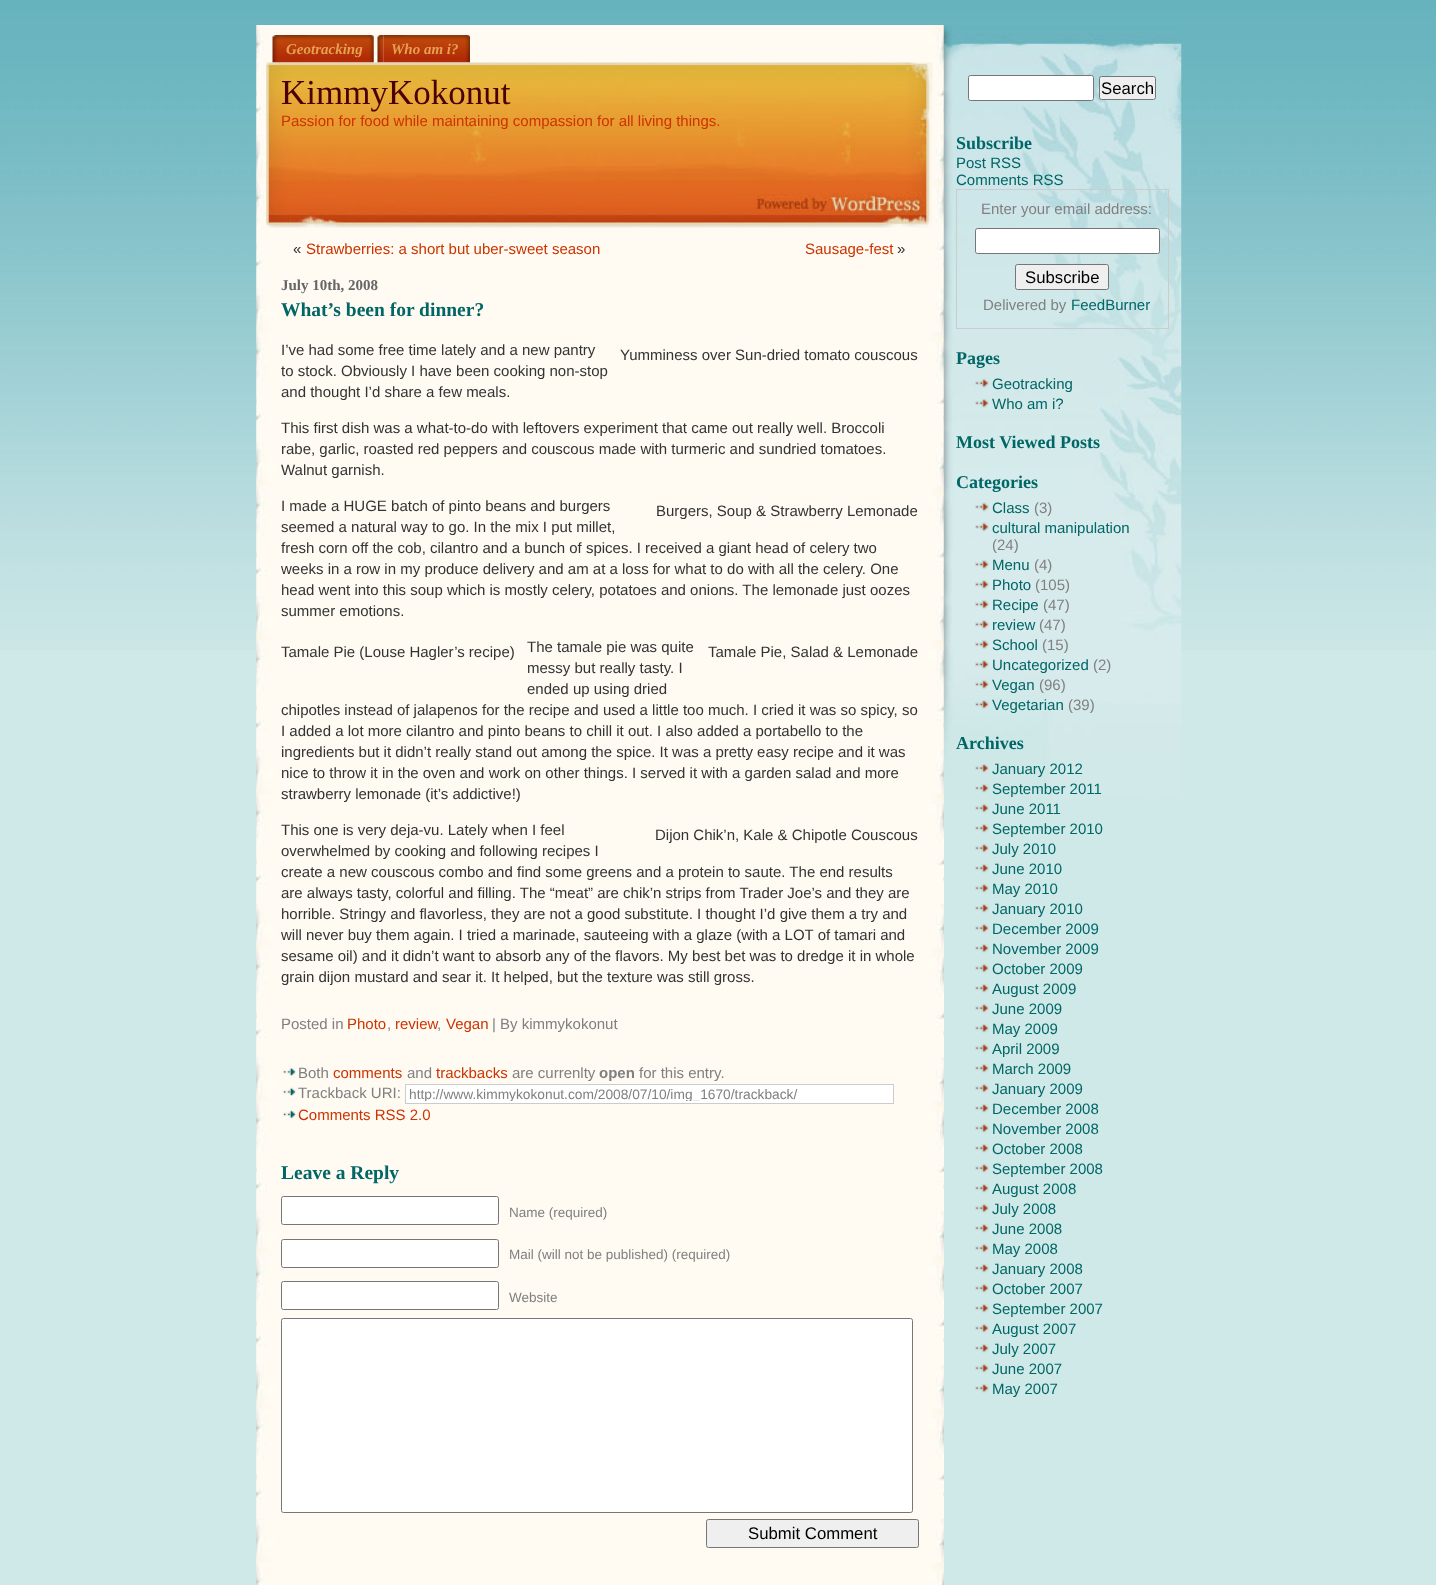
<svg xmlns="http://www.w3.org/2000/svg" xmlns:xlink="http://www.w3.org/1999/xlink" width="1436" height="1585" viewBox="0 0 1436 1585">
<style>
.cls-1{font:italic bold 15px Liberation Serif;fill:#e5a153}
.cls-2{font:35px Liberation Serif;fill:#4d0000}
.cls-3{font:15px Liberation Sans;fill:#cc3300}
.cls-4{font:15px Liberation Sans;fill:#333333}
.cls-5{font:bold 15px Liberation Serif;fill:#666666}
.cls-6{font:bold 19.5px Liberation Serif;fill:#006666}
.cls-7{font:15px Liberation Sans;fill:#808080}
.cls-8{font:bold 15px Liberation Sans;fill:#808080}
.cls-9{font:13.75px Liberation Sans;fill:#808080}
.cls-10{font:13.5px Liberation Sans;fill:#808080}
.cls-11{font:16.75px Liberation Sans;fill:#000000}
.cls-12{font:bold 18px Liberation Serif;fill:#006666}
.cls-13{font:15px Liberation Sans;fill:#006666}
</style>
<defs>
<clipPath id="clip1"><rect x="409" y="1086" width="481" height="15"/></clipPath>
</defs>
<rect width="100%" height="100%" fill="#cfe8e8"/>
<image xlink:href="image0.png" x="0" y="0" width="1436" height="650"/>
<image xlink:href="image1.png" x="256" y="25" width="688" height="1560"/>
<image xlink:href="image2.png" x="272" y="35" width="8" height="28"/>
<image xlink:href="image3.png" x="278" y="35" width="96" height="28"/>
<image xlink:href="image4.png" x="377" y="35" width="7" height="28"/>
<image xlink:href="image5.png" x="383" y="35" width="87" height="28"/>
<image xlink:href="image6.png" x="266" y="62" width="667" height="166"/>
<image xlink:href="image7.png" x="282" y="1067" width="14" height="10"/>
<image xlink:href="image7.png" x="282" y="1087" width="14" height="10"/>
<rect fill="#ffffff" stroke="#cccccc" x="405.5" y="1084.5" width="488" height="19"/>
<image xlink:href="image8.png" x="282" y="1110" width="15" height="9"/>
<rect fill="#ffffff" stroke="#767676" x="281.5" y="1196.5" width="217" height="28" rx="2"/>
<rect fill="#ffffff" stroke="#767676" x="281.5" y="1239.5" width="217" height="28" rx="2"/>
<rect fill="#ffffff" stroke="#767676" x="281.5" y="1281.5" width="217" height="28" rx="2"/>
<rect fill="#ffffff" stroke="#767676" x="281.5" y="1318.5" width="631" height="194" rx="2"/>
<rect fill="#efefef" stroke="#767676" x="706.5" y="1519.5" width="212" height="28" rx="2"/>
<image xlink:href="image9.png" x="943" y="25" width="239" height="775"/>
<rect fill="#ffffff" stroke="#767676" x="968.5" y="75.5" width="125" height="25" rx="2"/>
<rect fill="#efefef" stroke="#767676" x="1099.5" y="76.5" width="56" height="23" rx="2"/>
<rect fill="none" stroke="#cccccc" x="956.5" y="189.5" width="212" height="139"/>
<rect fill="#ffffff" stroke="#767676" x="975.5" y="228.5" width="184" height="25" rx="2"/>
<rect fill="#efefef" stroke="#767676" x="1015.5" y="264.5" width="93" height="25" rx="2"/>
<image xlink:href="image10.png" x="975" y="378" width="14" height="10"/>
<image xlink:href="image11.png" x="975" y="398" width="14" height="10"/>
<image xlink:href="image12.png" x="975" y="502" width="14" height="10"/>
<image xlink:href="image12.png" x="975" y="522" width="14" height="10"/>
<image xlink:href="image13.png" x="975" y="560" width="14" height="9"/>
<image xlink:href="image13.png" x="975" y="580" width="14" height="9"/>
<image xlink:href="image13.png" x="975" y="600" width="14" height="9"/>
<image xlink:href="image13.png" x="975" y="620" width="14" height="9"/>
<image xlink:href="image14.png" x="975" y="640" width="14" height="9"/>
<image xlink:href="image15.png" x="975" y="660" width="14" height="9"/>
<image xlink:href="image16.png" x="975" y="680" width="14" height="9"/>
<image xlink:href="image17.png" x="975" y="700" width="14" height="9"/>
<image xlink:href="image18.png" x="975" y="764" width="14" height="9"/>
<image xlink:href="image18.png" x="975" y="784" width="14" height="9"/>
<image xlink:href="image19.png" x="975" y="803" width="14" height="10"/>
<image xlink:href="image19.png" x="975" y="823" width="14" height="10"/>
<image xlink:href="image19.png" x="975" y="843" width="14" height="10"/>
<image xlink:href="image19.png" x="975" y="863" width="14" height="10"/>
<image xlink:href="image19.png" x="975" y="883" width="14" height="10"/>
<image xlink:href="image19.png" x="975" y="903" width="14" height="10"/>
<image xlink:href="image19.png" x="975" y="923" width="14" height="10"/>
<image xlink:href="image19.png" x="975" y="943" width="14" height="10"/>
<image xlink:href="image19.png" x="975" y="963" width="14" height="10"/>
<image xlink:href="image19.png" x="975" y="983" width="14" height="10"/>
<image xlink:href="image19.png" x="975" y="1003" width="14" height="10"/>
<image xlink:href="image20.png" x="975" y="1023" width="14" height="10"/>
<image xlink:href="image19.png" x="975" y="1043" width="14" height="10"/>
<image xlink:href="image19.png" x="975" y="1063" width="14" height="10"/>
<image xlink:href="image19.png" x="975" y="1083" width="14" height="10"/>
<image xlink:href="image19.png" x="975" y="1103" width="14" height="10"/>
<image xlink:href="image19.png" x="975" y="1123" width="14" height="10"/>
<image xlink:href="image19.png" x="975" y="1143" width="14" height="10"/>
<image xlink:href="image19.png" x="975" y="1163" width="14" height="10"/>
<image xlink:href="image19.png" x="975" y="1183" width="14" height="10"/>
<image xlink:href="image19.png" x="975" y="1203" width="14" height="10"/>
<image xlink:href="image19.png" x="975" y="1223" width="14" height="10"/>
<image xlink:href="image19.png" x="975" y="1243" width="14" height="10"/>
<image xlink:href="image19.png" x="975" y="1263" width="14" height="10"/>
<image xlink:href="image19.png" x="975" y="1283" width="14" height="10"/>
<image xlink:href="image19.png" x="975" y="1303" width="14" height="10"/>
<image xlink:href="image19.png" x="975" y="1323" width="14" height="10"/>
<image xlink:href="image19.png" x="975" y="1343" width="14" height="10"/>
<image xlink:href="image19.png" x="975" y="1363" width="14" height="10"/>
<image xlink:href="image19.png" x="975" y="1383" width="14" height="10"/>
<text class="cls-1" x="286" y="54">Geotracking</text>
<text class="cls-1" x="391" y="54">Who am i?</text>
<text class="cls-2" x="281" y="104">KimmyKokonut</text>
<text class="cls-3" x="281" y="126">Passion for food while maintaining compassion for all living things.</text>
<text class="cls-4" x="293" y="254">«</text>
<text class="cls-3" x="306" y="254">Strawberries: a short but uber-sweet season</text>
<text class="cls-3" x="805" y="254">Sausage-fest</text>
<text class="cls-4" x="897" y="254">»</text>
<text class="cls-5" x="281" y="290">July 10th, 2008</text>
<text class="cls-6" x="281" y="316">What’s been for dinner?</text>
<text class="cls-4"><tspan x="281" y="355">I’ve had some free time lately and a new pantry</tspan><tspan x="281" y="376">to stock. Obviously I have been cooking non-stop</tspan><tspan x="281" y="397">and thought I’d share a few meals.</tspan></text>
<text class="cls-4" x="620" y="360">Yumminess over Sun-dried tomato couscous</text>
<text class="cls-4"><tspan x="281" y="433">This first dish was a what-to-do with leftovers experiment that came out really well. Broccoli</tspan><tspan x="281" y="454">rabe, garlic, roasted red peppers and couscous made with turmeric and sundried tomatoes.</tspan><tspan x="281" y="475">Walnut garnish.</tspan></text>
<text class="cls-4"><tspan x="281" y="511">I made a HUGE batch of pinto beans and burgers</tspan><tspan x="281" y="532">seemed a natural way to go. In the mix I put millet,</tspan><tspan x="281" y="553">fresh corn off the cob, cilantro and a bunch of spices. I received a giant head of celery two</tspan><tspan x="281" y="574">weeks in a row in my produce delivery and am at a loss for what to do with all the celery. One</tspan><tspan x="281" y="595">head went into this soup which is mostly celery, potatoes and onions. The lemonade just oozes</tspan><tspan x="281" y="616">summer emotions.</tspan></text>
<text class="cls-4" x="656" y="516">Burgers, Soup &amp; Strawberry Lemonade</text>
<text class="cls-4"><tspan x="527" y="652">The tamale pie was quite</tspan><tspan x="527" y="673">messy but really tasty. I</tspan><tspan x="527" y="694">ended up using dried</tspan></text>
<text class="cls-4"><tspan x="281" y="715">chipotles instead of jalapenos for the recipe and used a little too much. I cried it was so spicy, so</tspan><tspan x="281" y="736">I added a lot more cilantro and pinto beans to chill it out. I also added a portabello to the</tspan><tspan x="281" y="757">ingredients but it didn’t really stand out among the spice. It was a pretty easy recipe and it was</tspan><tspan x="281" y="778">nice to throw it in the oven and work on other things. I served it with a garden salad and more</tspan><tspan x="281" y="799">strawberry lemonade (it’s addictive!)</tspan></text>
<text class="cls-4" x="281" y="657">Tamale Pie (Louse Hagler’s recipe)</text>
<text class="cls-4" x="708" y="657">Tamale Pie, Salad &amp; Lemonade</text>
<text class="cls-4"><tspan x="281" y="835">This one is very deja-vu. Lately when I feel</tspan><tspan x="281" y="856">overwhelmed by cooking and following recipes I</tspan><tspan x="281" y="877">create a new couscous combo and find some greens and a protein to saute. The end results</tspan><tspan x="281" y="898">are always tasty, colorful and filling. The “meat” are chik’n strips from Trader Joe’s and they are</tspan><tspan x="281" y="919">horrible. Stringy and flavorless, they are not a good substitute. I thought I’d give them a try and</tspan><tspan x="281" y="940">will never buy them again. I tried a marinade, sauteeing with a glaze (with a LOT of tamari and</tspan><tspan x="281" y="961">sesame oil) and it didn’t want to absorb any of the flavors. My best bet was to dredge it in whole</tspan><tspan x="281" y="982">grain dijon mustard and sear it. It helped, but the texture was still gross.</tspan></text>
<text class="cls-4" x="655" y="840">Dijon Chik’n, Kale &amp; Chipotle Couscous</text>
<text class="cls-7" x="281" y="1029">Posted in</text>
<text class="cls-3" x="347" y="1029">Photo</text>
<text class="cls-7" x="387" y="1029">,</text>
<text class="cls-3" x="395" y="1029">review</text>
<text class="cls-7" x="437" y="1029">,</text>
<text class="cls-3" x="446" y="1029">Vegan</text>
<text class="cls-7" x="492" y="1029">| By kimmykokonut</text>
<text class="cls-7" x="298" y="1078">Both</text>
<text class="cls-3" x="333" y="1078">comments</text>
<text class="cls-7" x="407" y="1078">and</text>
<text class="cls-3" x="436" y="1078">trackbacks</text>
<text class="cls-7" x="512" y="1078">are currenlty</text>
<text class="cls-8" x="599" y="1078">open</text>
<text class="cls-7" x="639" y="1078">for this entry.</text>
<text class="cls-7" x="298" y="1098">Trackback URI:</text>
<g clip-path="url(#clip1)">
<text class="cls-9" x="409" y="1099">http://www.kimmykokonut.com/2008/07/10/img_1670/trackback/</text>
</g>
<text class="cls-3" x="298" y="1120">Comments RSS 2.0</text>
<text class="cls-6" x="281" y="1179">Leave a Reply</text>
<text class="cls-10" x="509" y="1217">Name (required)</text>
<text class="cls-10" x="509" y="1259">Mail (will not be published) (required)</text>
<text class="cls-10" x="509" y="1302">Website</text>
<text class="cls-11" x="748" y="1539">Submit Comment</text>
<text class="cls-11" x="1101" y="94">Search</text>
<text class="cls-12" x="956" y="149">Subscribe</text>
<text class="cls-13"><tspan x="956" y="168">Post RSS</tspan><tspan x="956" y="185">Comments RSS</tspan></text>
<text class="cls-7" x="981" y="214">Enter your email address:</text>
<text class="cls-11" x="1025" y="283">Subscribe</text>
<text class="cls-7" x="983" y="310">Delivered by</text>
<text class="cls-13" x="1071" y="310">FeedBurner</text>
<text class="cls-12" x="956" y="364">Pages</text>
<text class="cls-13"><tspan x="992" y="389">Geotracking</tspan><tspan x="992" y="409">Who am i?</tspan></text>
<text class="cls-12" x="956" y="448">Most Viewed Posts</text>
<text class="cls-12" x="956" y="488">Categories</text>
<text class="cls-13" x="992" y="513">Class</text>
<text class="cls-7" x="1034" y="513">(3)</text>
<text class="cls-13" x="992" y="533">cultural manipulation</text>
<text class="cls-7" x="992" y="550">(24)</text>
<text class="cls-13" x="992" y="570">Menu</text>
<text class="cls-7" x="1034" y="570">(4)</text>
<text class="cls-13" x="992" y="590">Photo</text>
<text class="cls-7" x="1035" y="590">(105)</text>
<text class="cls-13" x="992" y="610">Recipe</text>
<text class="cls-7" x="1043" y="610">(47)</text>
<text class="cls-13" x="992" y="630">review</text>
<text class="cls-7" x="1039" y="630">(47)</text>
<text class="cls-13" x="992" y="650">School</text>
<text class="cls-7" x="1042" y="650">(15)</text>
<text class="cls-13" x="992" y="670">Uncategorized</text>
<text class="cls-7" x="1093" y="670">(2)</text>
<text class="cls-13" x="992" y="690">Vegan</text>
<text class="cls-7" x="1039" y="690">(96)</text>
<text class="cls-13" x="992" y="710">Vegetarian</text>
<text class="cls-7" x="1068" y="710">(39)</text>
<text class="cls-12" x="956" y="749">Archives</text>
<text class="cls-13"><tspan x="992" y="774">January 2012</tspan><tspan x="992" y="794">September 2011</tspan><tspan x="992" y="814">June 2011</tspan><tspan x="992" y="834">September 2010</tspan><tspan x="992" y="854">July 2010</tspan><tspan x="992" y="874">June 2010</tspan><tspan x="992" y="894">May 2010</tspan><tspan x="992" y="914">January 2010</tspan><tspan x="992" y="934">December 2009</tspan><tspan x="992" y="954">November 2009</tspan><tspan x="992" y="974">October 2009</tspan><tspan x="992" y="994">August 2009</tspan><tspan x="992" y="1014">June 2009</tspan><tspan x="992" y="1034">May 2009</tspan><tspan x="992" y="1054">April 2009</tspan><tspan x="992" y="1074">March 2009</tspan><tspan x="992" y="1094">January 2009</tspan><tspan x="992" y="1114">December 2008</tspan><tspan x="992" y="1134">November 2008</tspan><tspan x="992" y="1154">October 2008</tspan><tspan x="992" y="1174">September 2008</tspan><tspan x="992" y="1194">August 2008</tspan><tspan x="992" y="1214">July 2008</tspan><tspan x="992" y="1234">June 2008</tspan><tspan x="992" y="1254">May 2008</tspan><tspan x="992" y="1274">January 2008</tspan><tspan x="992" y="1294">October 2007</tspan><tspan x="992" y="1314">September 2007</tspan><tspan x="992" y="1334">August 2007</tspan><tspan x="992" y="1354">July 2007</tspan><tspan x="992" y="1374">June 2007</tspan><tspan x="992" y="1394">May 2007</tspan></text>
</svg>
